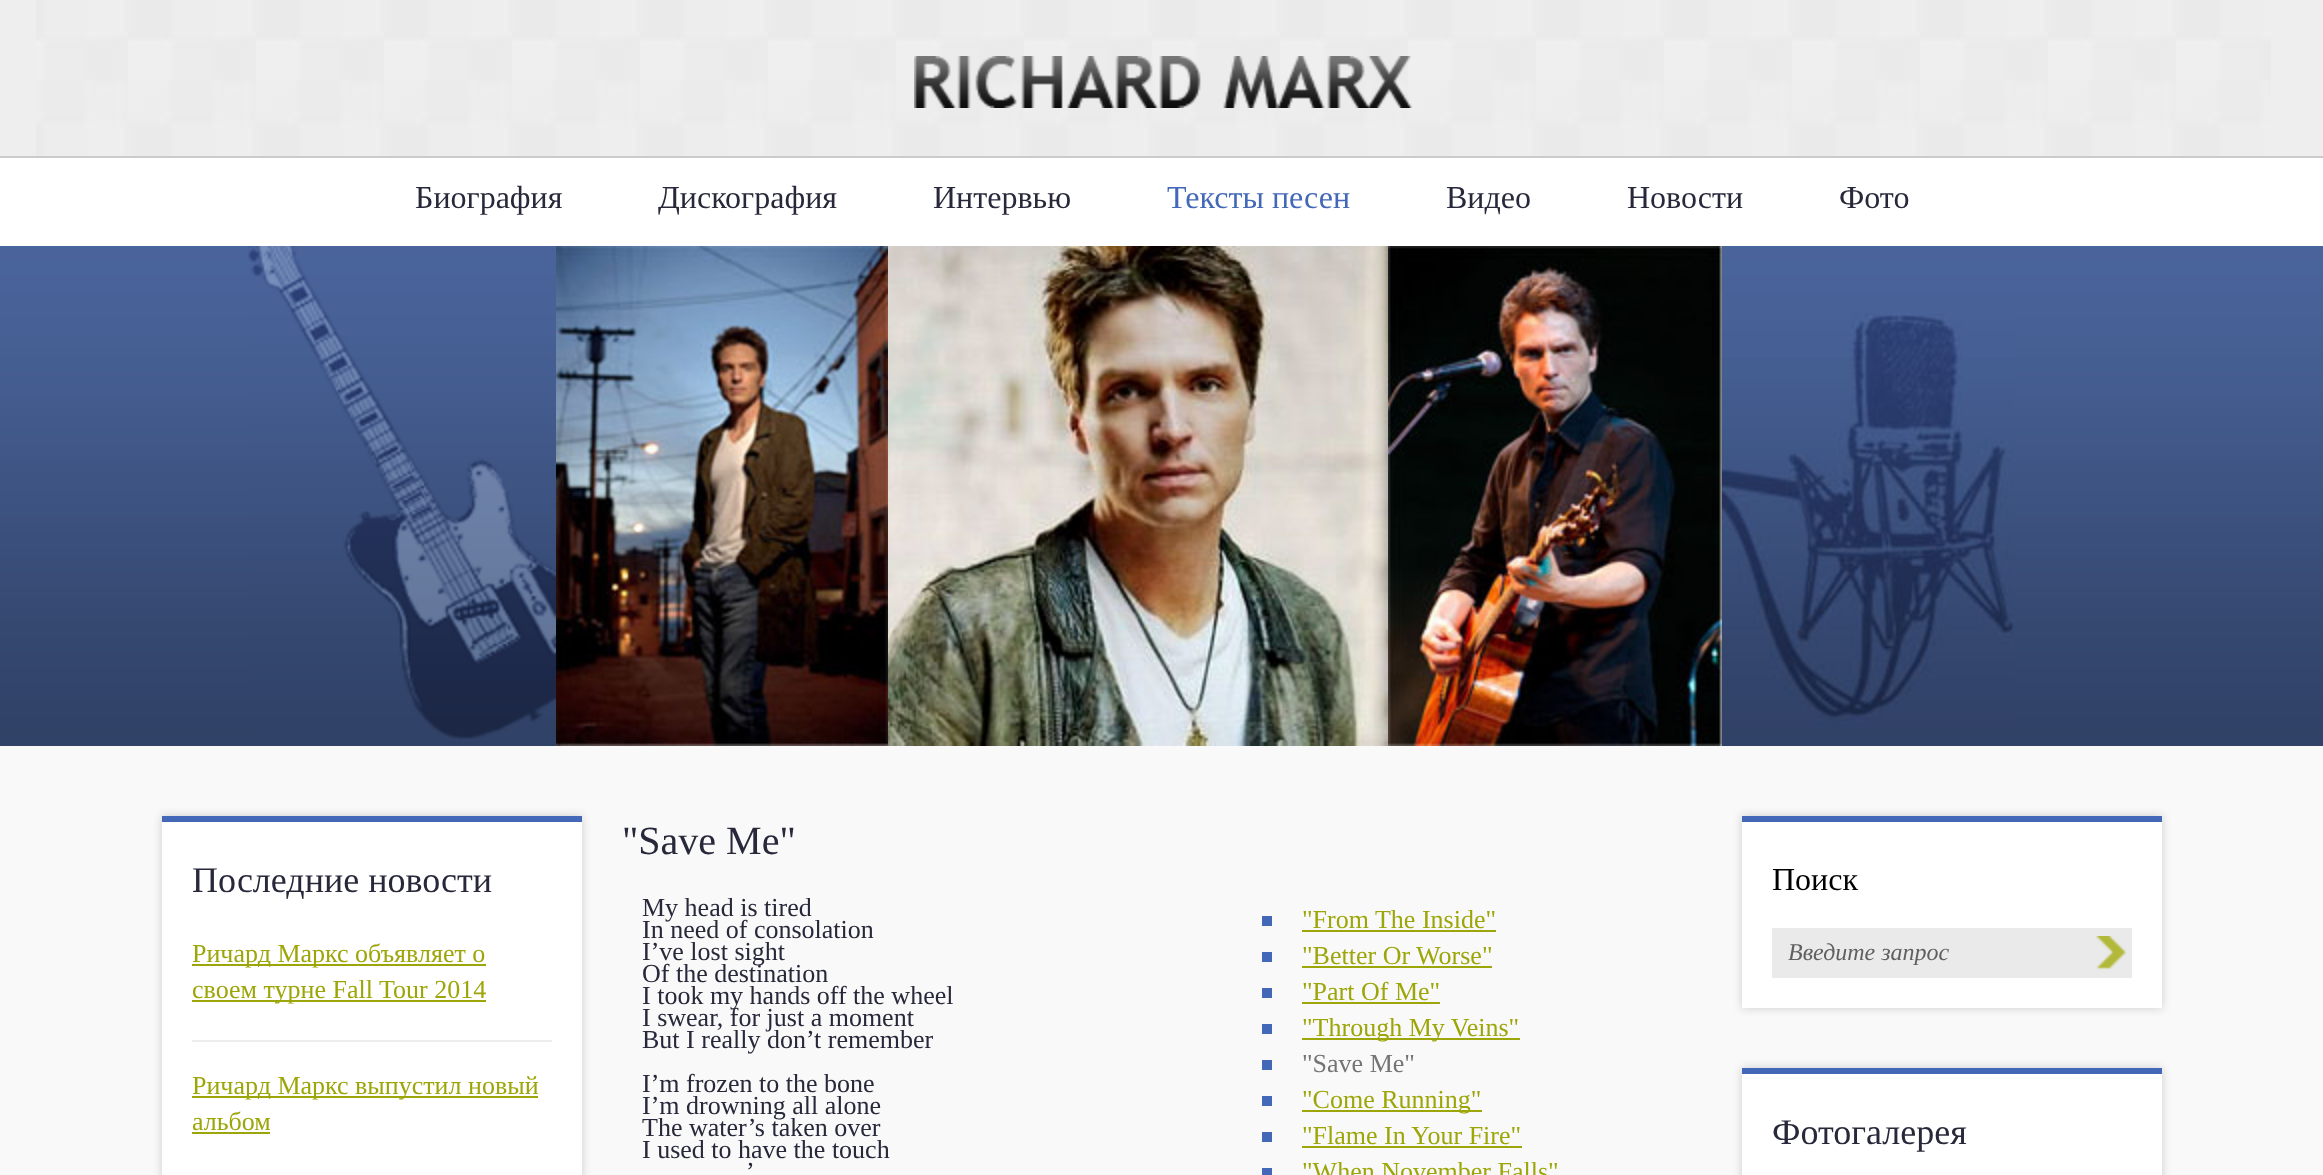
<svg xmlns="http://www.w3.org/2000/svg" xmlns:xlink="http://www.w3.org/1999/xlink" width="2323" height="1175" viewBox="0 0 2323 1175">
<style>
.cls-1{font:32px Liberation Serif;fill:#28283b}
.cls-2{font:32px Liberation Serif;fill:#4268b7}
.cls-3{font:36px Liberation Serif;fill:#28283b}
.cls-4{font:26px Liberation Serif;fill:#9da609}
.cls-5{font:40px Liberation Serif;fill:#28283b}
.cls-6{font:26px Liberation Serif;fill:#28283b}
.cls-7{font:26px Liberation Serif;fill:#747474}
.cls-8{font:32px Liberation Serif;fill:#000000}
.cls-9{font:italic 24px Liberation Serif;fill:#606060}
</style>
<rect width="100%" height="100%" fill="#f9f9f9"/>
<rect fill="#eeeeee" x="0" y="0" width="2323" height="156"/>
<image xlink:href="image0.png" x="36" y="0" width="2235" height="156"/>
<rect fill="#cbcbcb" x="0" y="156" width="2323" height="2"/>
<image xlink:href="image1.png" x="914" y="56" width="498" height="52"/>
<rect fill="#ffffff" x="0" y="158" width="2323" height="88"/>
<image xlink:href="image2.png" x="0" y="246" width="2323" height="500"/>
<image xlink:href="image3.png" x="248" y="246" width="308" height="493"/>
<image xlink:href="image4.png" x="556" y="246" width="332" height="500"/>
<image xlink:href="image5.png" x="888" y="246" width="500" height="500"/>
<image xlink:href="image6.png" x="1388" y="246" width="334" height="500"/>
<image xlink:href="image7.png" x="1722" y="313" width="292" height="412"/>
<rect fill="#cccccc" filter="blur(5px)" x="162" y="816" width="420" height="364"/>
<rect fill="#ffffff" x="162" y="822" width="420" height="353"/>
<rect fill="#4268b7" x="162" y="816" width="420" height="6"/>
<rect fill="#ededed" x="192" y="1040" width="360" height="2"/>
<rect fill="#9da609" x="192" y="964" width="294" height="2"/>
<rect fill="#9da609" x="192" y="1000" width="294" height="2"/>
<rect fill="#9da609" x="192" y="1096" width="346" height="2"/>
<rect fill="#9da609" x="192" y="1132" width="78" height="2"/>
<rect fill="#4268b7" x="1262" y="916" width="10" height="10"/>
<rect fill="#9da609" x="1302" y="930" width="194" height="2"/>
<rect fill="#4268b7" x="1262" y="952" width="10" height="10"/>
<rect fill="#9da609" x="1302" y="966" width="190" height="2"/>
<rect fill="#4268b7" x="1262" y="988" width="10" height="10"/>
<rect fill="#9da609" x="1302" y="1002" width="138" height="2"/>
<rect fill="#4268b7" x="1262" y="1024" width="10" height="10"/>
<rect fill="#9da609" x="1302" y="1038" width="218" height="2"/>
<rect fill="#4268b7" x="1262" y="1060" width="10" height="10"/>
<rect fill="#4268b7" x="1262" y="1096" width="10" height="10"/>
<rect fill="#9da609" x="1302" y="1110" width="180" height="2"/>
<rect fill="#4268b7" x="1262" y="1132" width="10" height="10"/>
<rect fill="#9da609" x="1302" y="1146" width="220" height="2"/>
<rect fill="#4268b7" x="1262" y="1168" width="10" height="7"/>
<rect fill="#cccccc" filter="blur(5px)" x="1742" y="816" width="420" height="192"/>
<rect fill="#ffffff" x="1742" y="822" width="420" height="186"/>
<rect fill="#4268b7" x="1742" y="816" width="420" height="6"/>
<rect fill="#eaeaea" x="1772" y="928" width="360" height="50"/>
<image xlink:href="image8.png" x="2096" y="936" width="30" height="34"/>
<rect fill="#cccccc" filter="blur(5px)" x="1742" y="1068" width="420" height="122"/>
<rect fill="#ffffff" x="1742" y="1074" width="420" height="101"/>
<rect fill="#4268b7" x="1742" y="1068" width="420" height="6"/>
<text class="cls-1" x="415" y="208">Биография</text>
<text class="cls-1" x="658" y="208">Дискография</text>
<text class="cls-1" x="933" y="208">Интервью</text>
<text class="cls-2" x="1167" y="208">Тексты песен</text>
<text class="cls-1" x="1446" y="208">Видео</text>
<text class="cls-1" x="1627" y="208">Новости</text>
<text class="cls-1" x="1839" y="208">Фото</text>
<text class="cls-3" x="192" y="892">Последние новости</text>
<text class="cls-4"><tspan x="192" y="962">Ричард Маркс объявляет о</tspan><tspan x="192" y="998">своем турне Fall Tour 2014</tspan></text>
<text class="cls-4"><tspan x="192" y="1094">Ричард Маркс выпустил новый</tspan><tspan x="192" y="1130">альбом</tspan></text>
<text class="cls-5" x="622" y="854">"Save Me"</text>
<text class="cls-6"><tspan x="642" y="916">My head is tired</tspan><tspan x="642" y="938">In need of consolation</tspan><tspan x="642" y="960">I’ve lost sight</tspan><tspan x="642" y="982">Of the destination</tspan><tspan x="642" y="1004">I took my hands off the wheel</tspan><tspan x="642" y="1026">I swear, for just a moment</tspan><tspan x="642" y="1048">But I really don’t remember</tspan><tspan x="642" y="1092">I’m frozen to the bone</tspan><tspan x="642" y="1114">I’m drowning all alone</tspan><tspan x="642" y="1136">The water’s taken over</tspan><tspan x="642" y="1158">I used to have the touch</tspan></text>
<text class="cls-6" x="746" y="1180">’</text>
<text class="cls-4"><tspan x="1302" y="928">"From The Inside"</tspan><tspan x="1302" y="964">"Better Or Worse"</tspan><tspan x="1302" y="1000">"Part Of Me"</tspan><tspan x="1302" y="1036">"Through My Veins"</tspan></text>
<text class="cls-7" x="1302" y="1072">"Save Me"</text>
<text class="cls-4"><tspan x="1302" y="1108">"Come Running"</tspan><tspan x="1302" y="1144">"Flame In Your Fire"</tspan><tspan x="1302" y="1180">"When November Falls"</tspan></text>
<text class="cls-8" x="1772" y="890">Поиск</text>
<text class="cls-9" x="1788" y="960">Введите запрос</text>
<text class="cls-3" x="1772" y="1144">Фотогалерея</text>
</svg>
